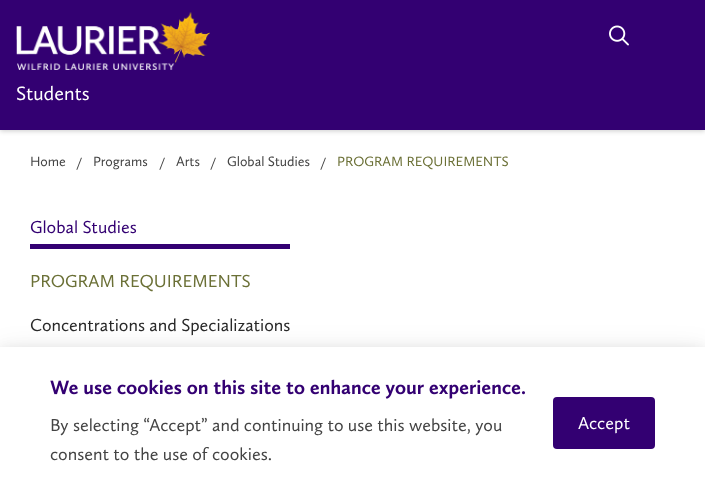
<svg xmlns="http://www.w3.org/2000/svg" xmlns:xlink="http://www.w3.org/1999/xlink" width="705" height="499" viewBox="0 0 705 499">
<style>
.cls-1{font:20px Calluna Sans;fill:#ffffff}
.cls-2{font:14px Calluna Sans;fill:#444444}
.cls-3{font:14px Calluna Sans;fill:#6b7036}
.cls-4{font:18px Calluna Sans;fill:#330072}
.cls-5{font:18px Calluna Sans;fill:#6b7036}
.cls-6{font:18px Calluna Sans;fill:#292929}
.cls-7{font:18px Calluna Sans;fill:#444444}
.cls-8{font:18px Calluna Sans;fill:#ffffff}
</style>
<rect width="100%" height="100%" fill="#ffffff"/>
<rect fill="#000000" fill-opacity="0.2" filter="blur(2.5px)" x="0" y="1" width="705" height="130"/>
<rect fill="#330072" x="0" y="0" width="705" height="130"/>
<image xlink:href="image0.png" x="609" y="25" width="20" height="21"/>
<image xlink:href="image1.png" x="16" y="12" width="194" height="58"/>
<rect fill="#330072" x="30" y="244" width="260" height="5"/>
<rect fill="#000000" fill-opacity="0.11" filter="blur(14.5px)" x="0" y="353" width="705" height="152"/>
<rect fill="#000000" fill-opacity="0.09" filter="blur(7px)" x="0" y="350" width="705" height="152"/>
<rect fill="#ffffff" x="0" y="347" width="705" height="152"/>
<image xlink:href="image2.png" x="50" y="379" width="475" height="20"/>
<rect fill="#330072" x="553" y="397" width="102" height="52" rx="4"/>
<text class="cls-1" x="16" y="100">Students</text>
<text class="cls-2" x="30" y="166">Home</text>
<text class="cls-2" x="76" y="167">/</text>
<text class="cls-2" x="93" y="166">Programs</text>
<text class="cls-2" x="159" y="167">/</text>
<text class="cls-2" x="176" y="166">Arts</text>
<text class="cls-2" x="210" y="167">/</text>
<text class="cls-2" x="227" y="166">Global Studies</text>
<text class="cls-2" x="320" y="167">/</text>
<text class="cls-3" x="337" y="166">PROGRAM REQUIREMENTS</text>
<text class="cls-4" x="30" y="233">Global Studies</text>
<text class="cls-5" x="30" y="287">PROGRAM REQUIREMENTS</text>
<text class="cls-6" x="30" y="331">Concentrations and Specializations</text>
<text class="cls-7"><tspan x="50" y="431">By selecting “Accept” and continuing to use this website, you</tspan><tspan x="50" y="460">consent to the use of cookies.</tspan></text>
<text class="cls-8" x="578" y="429">Accept</text>
</svg>
